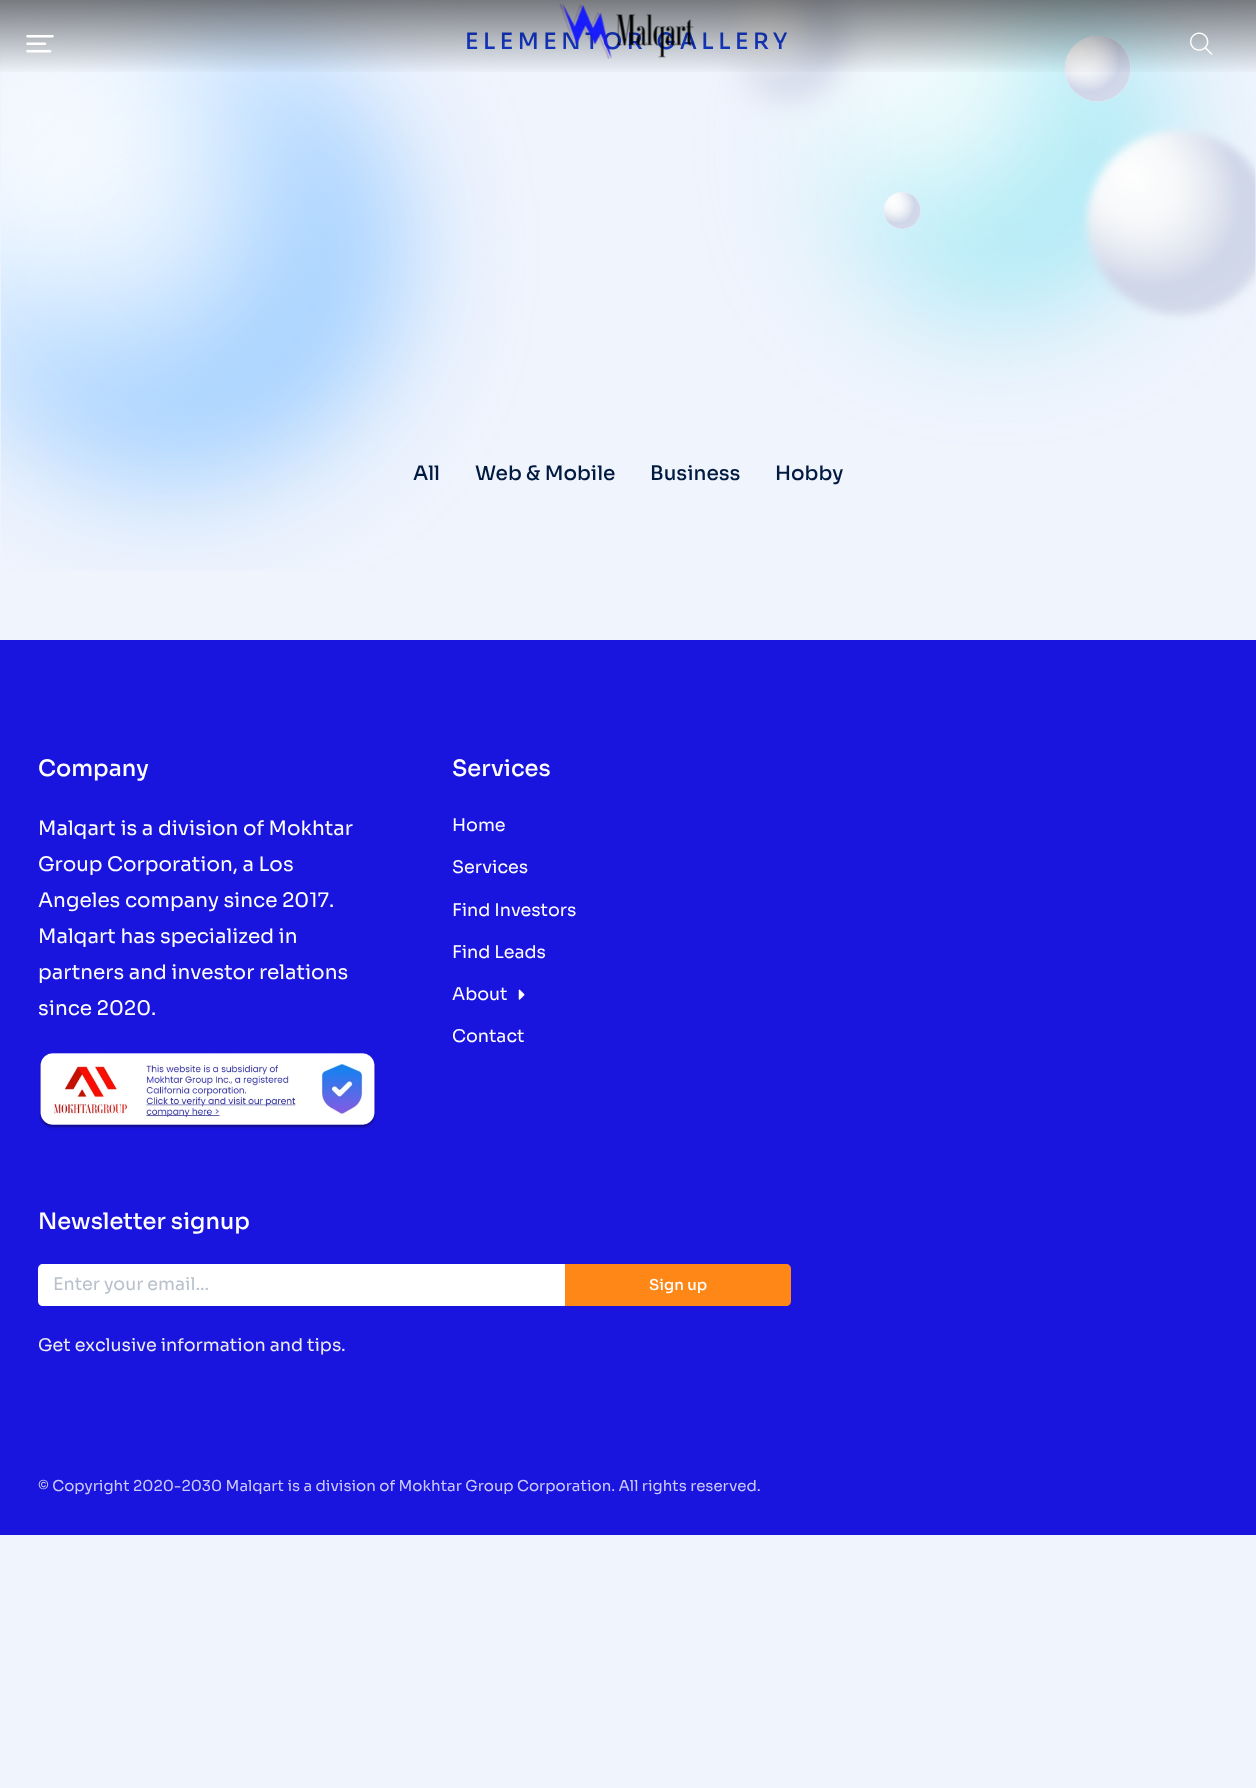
<svg xmlns="http://www.w3.org/2000/svg" xmlns:xlink="http://www.w3.org/1999/xlink" width="1256" height="1788" viewBox="0 0 1256 1788">
<style>
.cls-1{font:500 22.5px Sora;letter-spacing:4.5px;fill:#163fdf}
.cls-2{font:500 20px Sora;fill:#001a40}
.cls-3{font:500 22.5px Sora;fill:#ffffff}
.cls-4{font:20px Sora;fill:#ffffff}
.cls-5{font:17.5px Sora;fill:#ffffff}
.cls-6{font:17.5px Sora;fill:#b9c0cb}
.cls-7{font:500 15px Sora;fill:#ffffff}
.cls-8{font:17.5px Sora;fill:#ededed}
.cls-9{font:15px Sora;fill:#cdcbf8}
</style>
<defs>
<linearGradient id="g1" gradientUnits="userSpaceOnUse" x1="628" y1="0" x2="628" y2="75"><stop offset="0" stop-color="#000000" stop-opacity="0.5"/><stop offset="1" stop-color="#000000" stop-opacity="0"/></linearGradient>
</defs>
<rect width="100%" height="100%" fill="#eff4fd"/>
<image xlink:href="image0.png" x="0" y="0" width="1256" height="571"/>
<rect fill="#1a14df" x="0" y="640" width="1256" height="895"/>
<image xlink:href="image4.png" x="39" y="1053" width="337" height="76"/>
<image xlink:href="image5.png" x="518" y="989" width="7" height="11"/>
<path fill="#ffffff" d="M43 1264H565V1306H43C40 1306 38 1304 38 1301V1269C38 1266 40 1264 43 1264Z"/>
<path fill="#ff8717" d="M565 1264H786C789 1264 791 1266 791 1269V1301C791 1304 789 1306 786 1306H565Z"/>
<text class="cls-1" x="465" y="49">ELEMENTOR GALLERY</text>
<rect fill="url(#g1)" x="0" y="0" width="1256" height="72"/>
<image xlink:href="image3.png" x="1190" y="32" width="23" height="23"/>
<image xlink:href="image2.png" x="559" y="3" width="136" height="56"/>
<image xlink:href="image1.png" x="26" y="35" width="28" height="18"/>
<text class="cls-2" x="413" y="480">All</text>
<text class="cls-2" x="475" y="480">Web &amp; Mobile</text>
<text class="cls-2" x="650" y="480">Business</text>
<text class="cls-2" x="775" y="480">Hobby</text>
<text class="cls-3" x="38" y="776">Company</text>
<text class="cls-4"><tspan x="38" y="835">Malqart is a division of Mokhtar</tspan><tspan x="38" y="871">Group Corporation, a Los</tspan><tspan x="38" y="907">Angeles company since 2017.</tspan><tspan x="38" y="943">Malqart has specialized in</tspan><tspan x="38" y="979">partners and investor relations</tspan><tspan x="38" y="1015">since 2020.</tspan></text>
<text class="cls-3" x="452" y="776">Services</text>
<text class="cls-5" x="452" y="831">Home</text>
<text class="cls-5" x="452" y="873">Services</text>
<text class="cls-5" x="452" y="916">Find Investors</text>
<text class="cls-5" x="452" y="958">Find Leads</text>
<text class="cls-5" x="452" y="1000">About</text>
<text class="cls-5" x="452" y="1042">Contact</text>
<text class="cls-3" x="38" y="1229">Newsletter signup</text>
<text class="cls-6" x="53" y="1290">Enter your email...</text>
<text class="cls-7" x="649" y="1290">Sign up</text>
<text class="cls-8" x="38" y="1351">Get exclusive information and tips.</text>
<text class="cls-9" x="38" y="1491">© Copyright 2020-2030 Malqart is a division of Mokhtar Group Corporation. All rights reserved.</text>
</svg>
